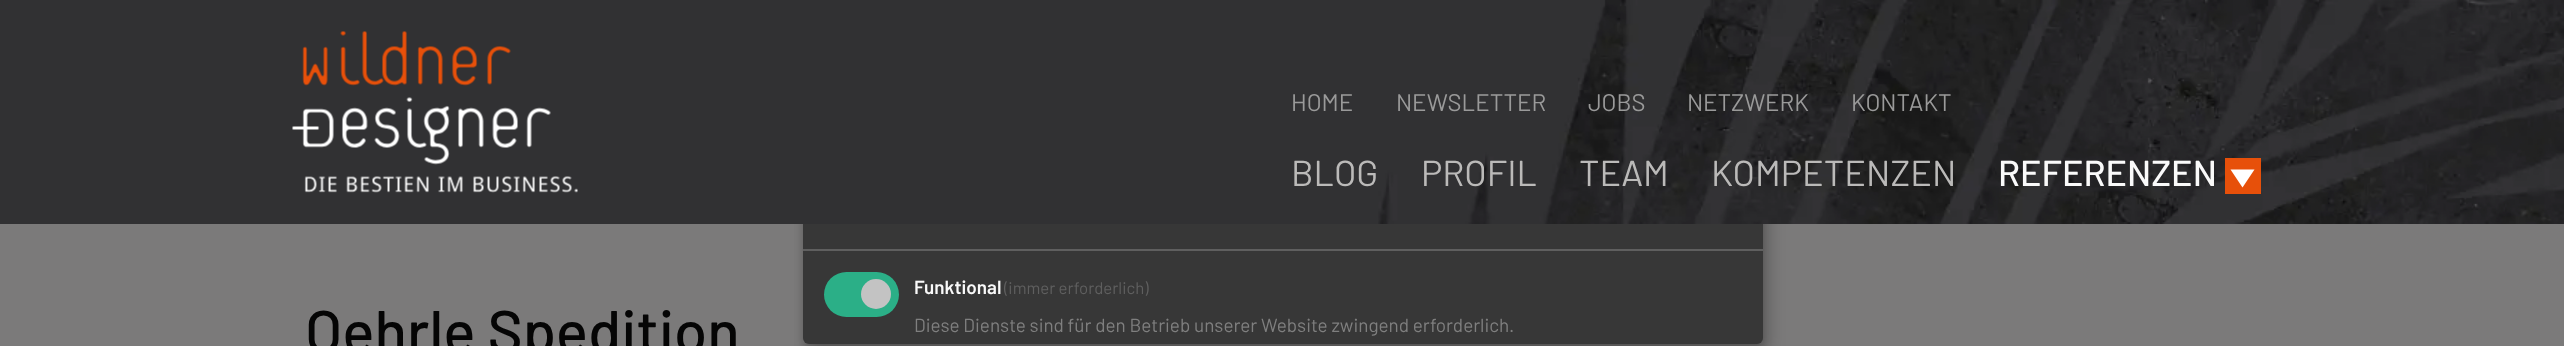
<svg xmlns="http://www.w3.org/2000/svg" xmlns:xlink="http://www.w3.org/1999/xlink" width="2564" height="346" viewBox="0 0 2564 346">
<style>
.cls-1{font:24px Barlow;fill:#9a9a9a}
.cls-2{font:36px Barlow;fill:#bbbab9}
.cls-3{font:500 36px Barlow;fill:#fafafa}
.cls-4{font:500 60px Barlow;fill:#050505}
.cls-5{font:600 18.9px Barlow;fill:#fafafa}
.cls-6{font:16.75px Barlow;fill:#5f5f5f}
.cls-7{font:18.9px Barlow;fill:#7f7f7f}
</style>
<rect width="100%" height="100%" fill="#7b7a7a"/>
<rect fill="#050505" fill-opacity="0.19" filter="blur(7.5px)" x="810" y="12" width="960" height="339" rx="6"/>
<rect fill="#050505" fill-opacity="0.2" filter="blur(4.5px)" x="803" y="11" width="960" height="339" rx="6"/>
<rect fill="#373737" x="803" y="5" width="960" height="339" rx="6"/>
<rect fill="#313133" x="0" y="0" width="1378" height="224"/>
<image xlink:href="image0.png" x="1378" y="0" width="1186" height="224"/>
<image xlink:href="image1.png" x="292" y="31" width="286" height="162"/>
<rect fill="#e7500a" x="2225" y="158" width="36" height="36"/>
<path fill="#ffffff" d="M2230.5 169.5H2254.5L2242.5 187.5Z"/>
<rect fill="#5f5f5f" x="803" y="249" width="960" height="2"/>
<rect fill="#2baf87" x="824" y="272" width="75" height="45" rx="22.5"/>
<circle fill="#c3c3c3" cx="876" cy="294" r="15"/>
<text class="cls-1" x="1291" y="111">HOME</text>
<text class="cls-1" x="1396" y="111">NEWSLETTER</text>
<text class="cls-1" x="1588" y="111">JOBS</text>
<text class="cls-1" x="1687" y="111">NETZWERK</text>
<text class="cls-1" x="1851" y="111">KONTAKT</text>
<text class="cls-2" x="1291" y="186">BLOG</text>
<text class="cls-2" x="1421" y="186">PROFIL</text>
<text class="cls-2" x="1579" y="186">TEAM</text>
<text class="cls-2" x="1711" y="186">KOMPETENZEN</text>
<text class="cls-3" x="1998" y="186">REFERENZEN</text>
<text class="cls-4" x="305" y="353">Oehrle Spedition</text>
<text class="cls-5" x="914" y="294">Funktional</text>
<text class="cls-6" x="1004" y="294">(immer erforderlich)</text>
<text class="cls-7" x="914" y="332">Diese Dienste sind für den Betrieb unserer Website zwingend erforderlich.</text>
</svg>
